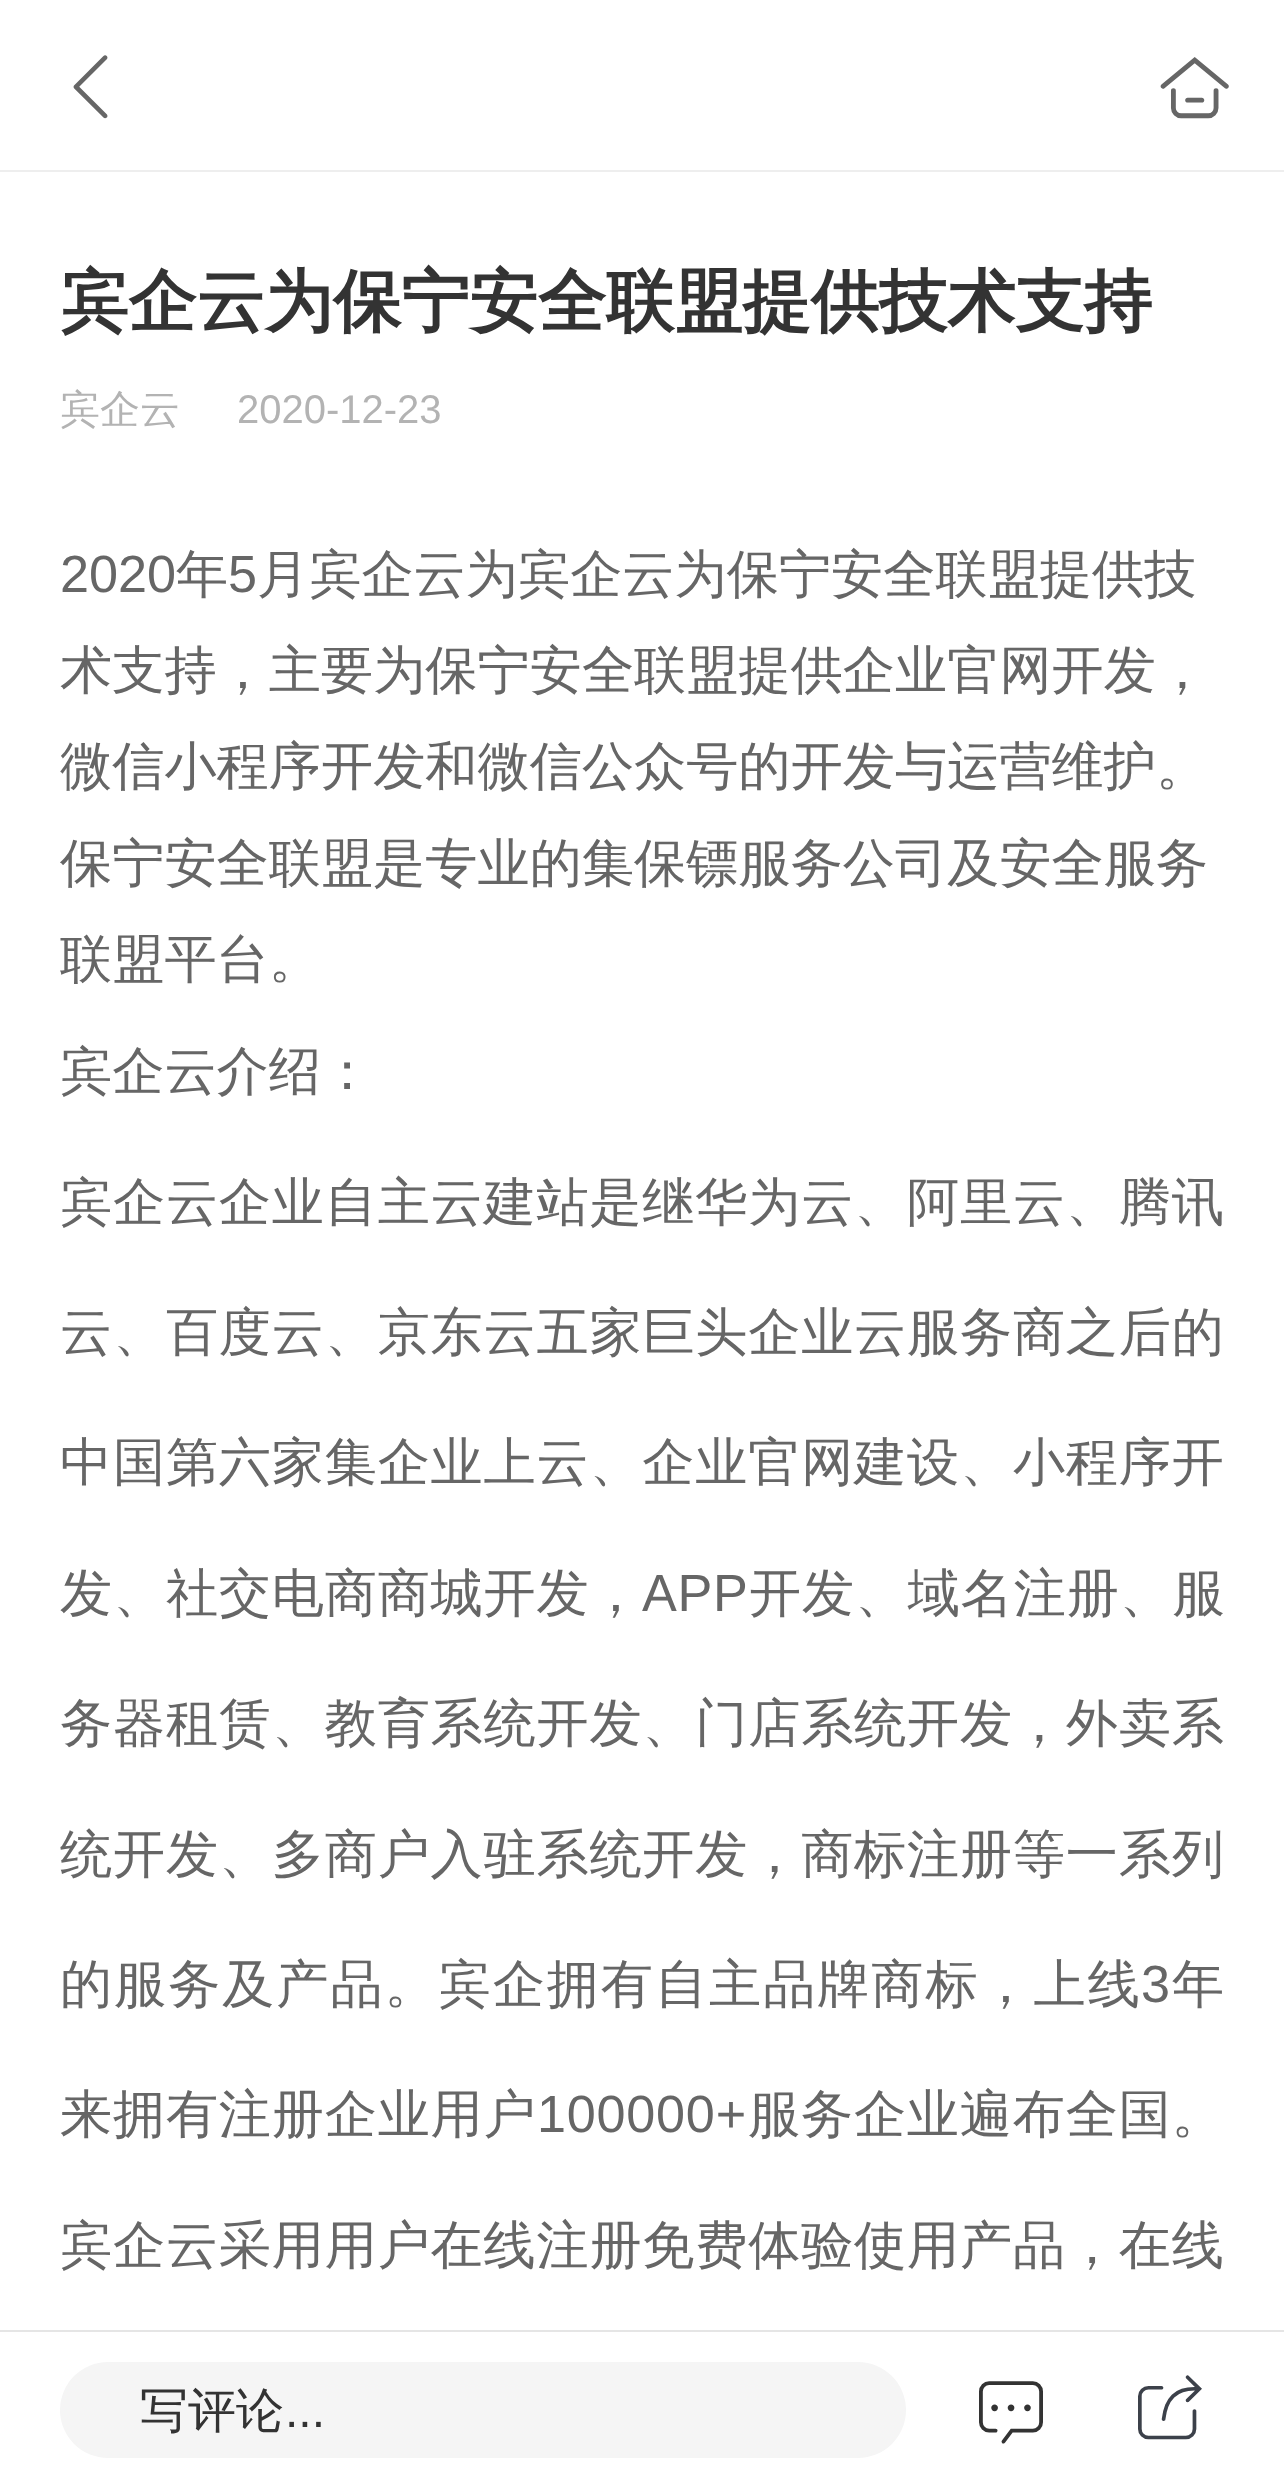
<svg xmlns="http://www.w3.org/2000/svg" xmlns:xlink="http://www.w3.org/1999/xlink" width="1284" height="2489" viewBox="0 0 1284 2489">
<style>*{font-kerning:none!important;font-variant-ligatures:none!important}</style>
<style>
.cls-1{font:63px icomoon;fill:#666666}
.cls-2{font:68.25px icomoon;fill:#666666}
.cls-3{font:bold 68.25px WenQuanYi Zen Hei;fill:#333333}
.cls-4{font:500 40px WenQuanYi Zen Hei;fill:#b3b3b3}
.cls-5{font:40px Liberation Sans;fill:#b3b3b3}
.cls-6{font:52.2px Liberation Sans;fill:#666666}
.cls-7{font:500 52.2px WenQuanYi Zen Hei;fill:#666666}
.cls-8{font:500 52.2px WenQuanYi Zen Hei;letter-spacing:0.75px;fill:#666666}
.cls-9{font:52.2px Liberation Sans;letter-spacing:0.75px;fill:#666666}
.cls-10{font:500 52.2px WenQuanYi Zen Hei;letter-spacing:1.9px;fill:#666666}
.cls-11{font:52.2px Liberation Sans;letter-spacing:1.9px;fill:#666666}
.cls-12{font:500 48px WenQuanYi Zen Hei;fill:#333333}
.cls-13{font:48px Liberation Sans;fill:#333333}
.cls-14{font:64px icomoon;fill:#333333}
.cls-15{font:64px icomoon;fill:#3c414a}
</style>
<rect width="100%" height="100%" fill="#ffffff"/>
<rect fill="#eeeeee" x="0" y="170" width="1284" height="2"/>
<rect fill="#e5e5e5" x="0" y="2330" width="1284" height="2"/>
<rect fill="#f5f5f5" x="60" y="2362" width="846" height="96" rx="48"/>
<text class="cls-1" x="59" y="113">򰊔</text>
<text class="cls-2" x="1160" y="116">򰌓</text>
<text class="cls-3" x="60" y="325">宾企云为保宁安全联盟提供技术支持</text>
<text class="cls-4" x="60" y="423">宾企云</text>
<text class="cls-5" x="237" y="423">2020-12-23</text>
<text class="cls-6" x="60" y="592">2020</text>
<text class="cls-7" x="176" y="592">年</text>
<text class="cls-6" x="228" y="592">5</text>
<text class="cls-7" x="257" y="592">月宾企云为宾企云为保宁安全联盟提供技</text>
<text class="cls-7"><tspan x="60" y="688">术支持，主要为保宁安全联盟提供企业官网开发，</tspan><tspan x="60" y="784">微信小程序开发和微信公众号的开发与运营维护。</tspan><tspan x="60" y="881">保宁安全联盟是专业的集保镖服务公司及安全服务</tspan><tspan x="60" y="977">联盟平台。</tspan></text>
<text class="cls-7" x="60" y="1089">宾企云介绍：</text>
<text class="cls-8" x="60" y="1220">宾企云企业自主云建站是继华为云、阿里云、腾讯</text>
<text class="cls-8" x="60" y="1350">云、百度云、京东云五家巨头企业云服务商之后的</text>
<text class="cls-8" x="60" y="1480">中国第六家集企业上云、企业官网建设、小程序开</text>
<text class="cls-8" x="60" y="1611">发、社交电商商城开发，</text>
<text class="cls-9" x="642" y="1611">APP</text>
<text class="cls-8" x="749" y="1611">开发、域名注册、服</text>
<text class="cls-8" x="60" y="1741">务器租赁、教育系统开发、门店系统开发，外卖系</text>
<text class="cls-8" x="60" y="1872">统开发、多商户入驻系统开发，商标注册等一系列</text>
<text class="cls-10" x="60" y="2002">的服务及产品。宾企拥有自主品牌商标，上线</text>
<text class="cls-11" x="1141" y="2002">3</text>
<text class="cls-10" x="1172" y="2002">年</text>
<text class="cls-8" x="60" y="2132">来拥有注册企业用户</text>
<text class="cls-9" x="537" y="2132">100000+</text>
<text class="cls-8" x="748" y="2132">服务企业遍布全国。</text>
<text class="cls-8" x="60" y="2263">宾企云采用用户在线注册免费体验使用产品，在线</text>
<text class="cls-12" x="140" y="2427">写评论</text>
<text class="cls-13" x="285" y="2427">...</text>
<text class="cls-14" x="979" y="2439">򰌇</text>
<text class="cls-15" x="1138" y="2434">򰌐</text>
</svg>
